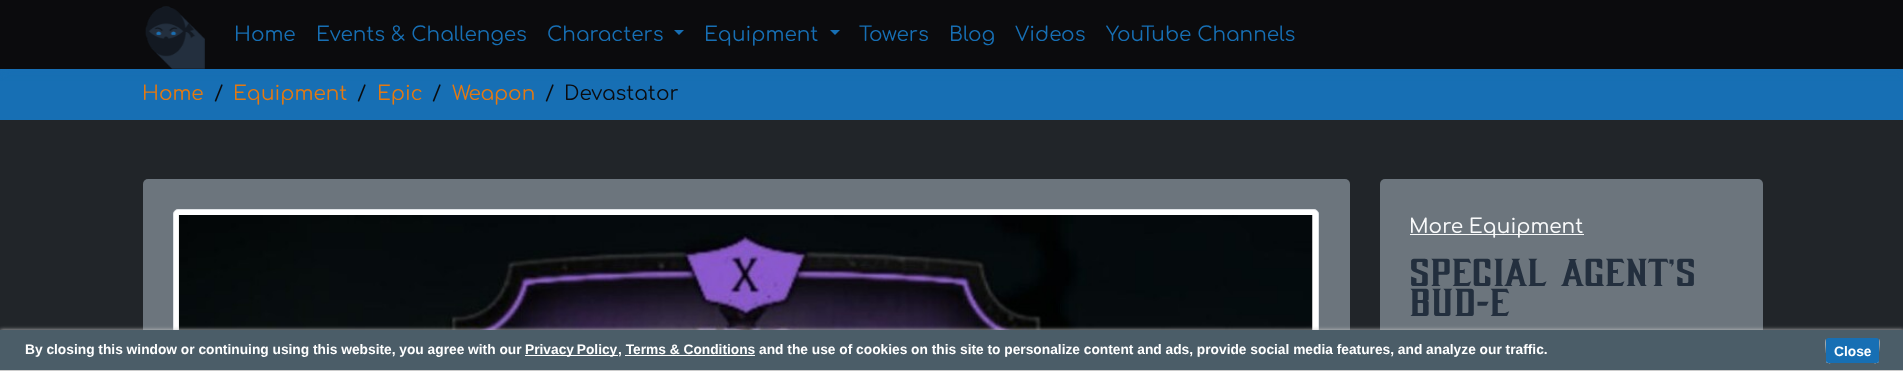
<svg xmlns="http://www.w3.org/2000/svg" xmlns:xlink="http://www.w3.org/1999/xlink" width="1903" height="371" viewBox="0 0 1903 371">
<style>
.cls-1{font:20px Comfortaa;fill:#176fb4}
.cls-2{font:20px Comfortaa;fill:#e47911}
.cls-3{font:20px Comfortaa;fill:#0b0b0d}
.cls-4{font:500 20px Comfortaa;fill:#f8f9fa}
.cls-5{font:25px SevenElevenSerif;fill:#232f3e}
.cls-6{font:bold 13.75px Liberation Sans;fill:#ffffff}
</style>
<rect width="100%" height="100%" fill="#212529"/>
<rect fill="#176fb4" x="0" y="69" width="1903" height="51"/>
<rect fill="#176fb4" filter="blur(4px)" x="1" y="3" width="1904" height="68"/>
<rect fill="#0b0b0d" x="0" y="0" width="1903" height="69"/>
<image xlink:href="image0.png" x="145" y="6" width="60" height="63"/>
<path fill="#176fb4" d="M674 30H684L679 35Z"/>
<path fill="#176fb4" d="M830 30H840L835 35Z"/>
<rect fill="#6c757d" x="143" y="179" width="1207" height="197" rx="5"/>
<rect fill="#ffffff" stroke="#dee2e6" x="173.5" y="209.5" width="1145" height="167" rx="4.5"/>
<image xlink:href="image1.png" x="178" y="215" width="1135" height="115"/>
<rect fill="#6c757d" x="1380" y="179" width="383" height="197" rx="5"/>
<rect fill="#f8f9fa" x="1410" y="234" width="174" height="1"/>
<rect fill="#cccccc" filter="blur(2px)" x="0" y="330" width="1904" height="41"/>
<rect fill="#4b5d68" x="0" y="330" width="1903" height="40"/>
<rect fill="#cccccc" x="0" y="370" width="1903" height="1"/>
<rect fill="#ffffff" x="525" y="355" width="93" height="1"/>
<rect fill="#ffffff" x="625" y="355" width="130" height="1"/>
<path fill="#ffffff" d="M1826 339C1825 341 1826 351 1826 354C1826 365 1825 363 1836 363H1868C1880 363 1879 365 1879 354C1879 351 1880 341 1879 339V353C1879 364 1880 362 1868 362H1837C1825 362 1826 364 1826 353Z"/>
<rect fill="#176fb4" x="1826" y="338" width="53" height="25" rx="2.5"/>
<text class="cls-1" x="234" y="41">Home</text>
<text class="cls-1" x="316" y="41">Events &amp; Challenges</text>
<text class="cls-1" x="547" y="41">Characters</text>
<text class="cls-1" x="704" y="41">Equipment</text>
<text class="cls-1" x="859" y="41">Towers</text>
<text class="cls-1" x="949" y="41">Blog</text>
<text class="cls-1" x="1015" y="41">Videos</text>
<text class="cls-1" x="1106" y="41">YouTube Channels</text>
<text class="cls-2" x="142" y="100">Home</text>
<text class="cls-3" x="214" y="100">/</text>
<text class="cls-2" x="233" y="100">Equipment</text>
<text class="cls-3" x="357" y="100">/</text>
<text class="cls-2" x="377" y="100">Epic</text>
<text class="cls-3" x="432" y="100">/</text>
<text class="cls-2" x="452" y="100">Weapon</text>
<text class="cls-3" x="545" y="100">/</text>
<text class="cls-3" x="564" y="100">Devastator</text>
<text class="cls-4" x="1409" y="233">More Equipment</text>
<text class="cls-5"><tspan x="1409" y="286">Special Agent's</tspan><tspan x="1409" y="316">BUD-E</tspan></text>
<text class="cls-6" x="25" y="354">By closing this window or continuing using this website, you agree with our</text>
<text class="cls-6" x="525" y="354" word-spacing="-1">Privacy Policy</text>
<text class="cls-6" x="618" y="354">, Terms &amp; Conditions and the use of cookies on this site to personalize content and ads, provide social media features, and analyze our traffic.</text>
<text class="cls-6" x="1834" y="356">Close</text>
</svg>
